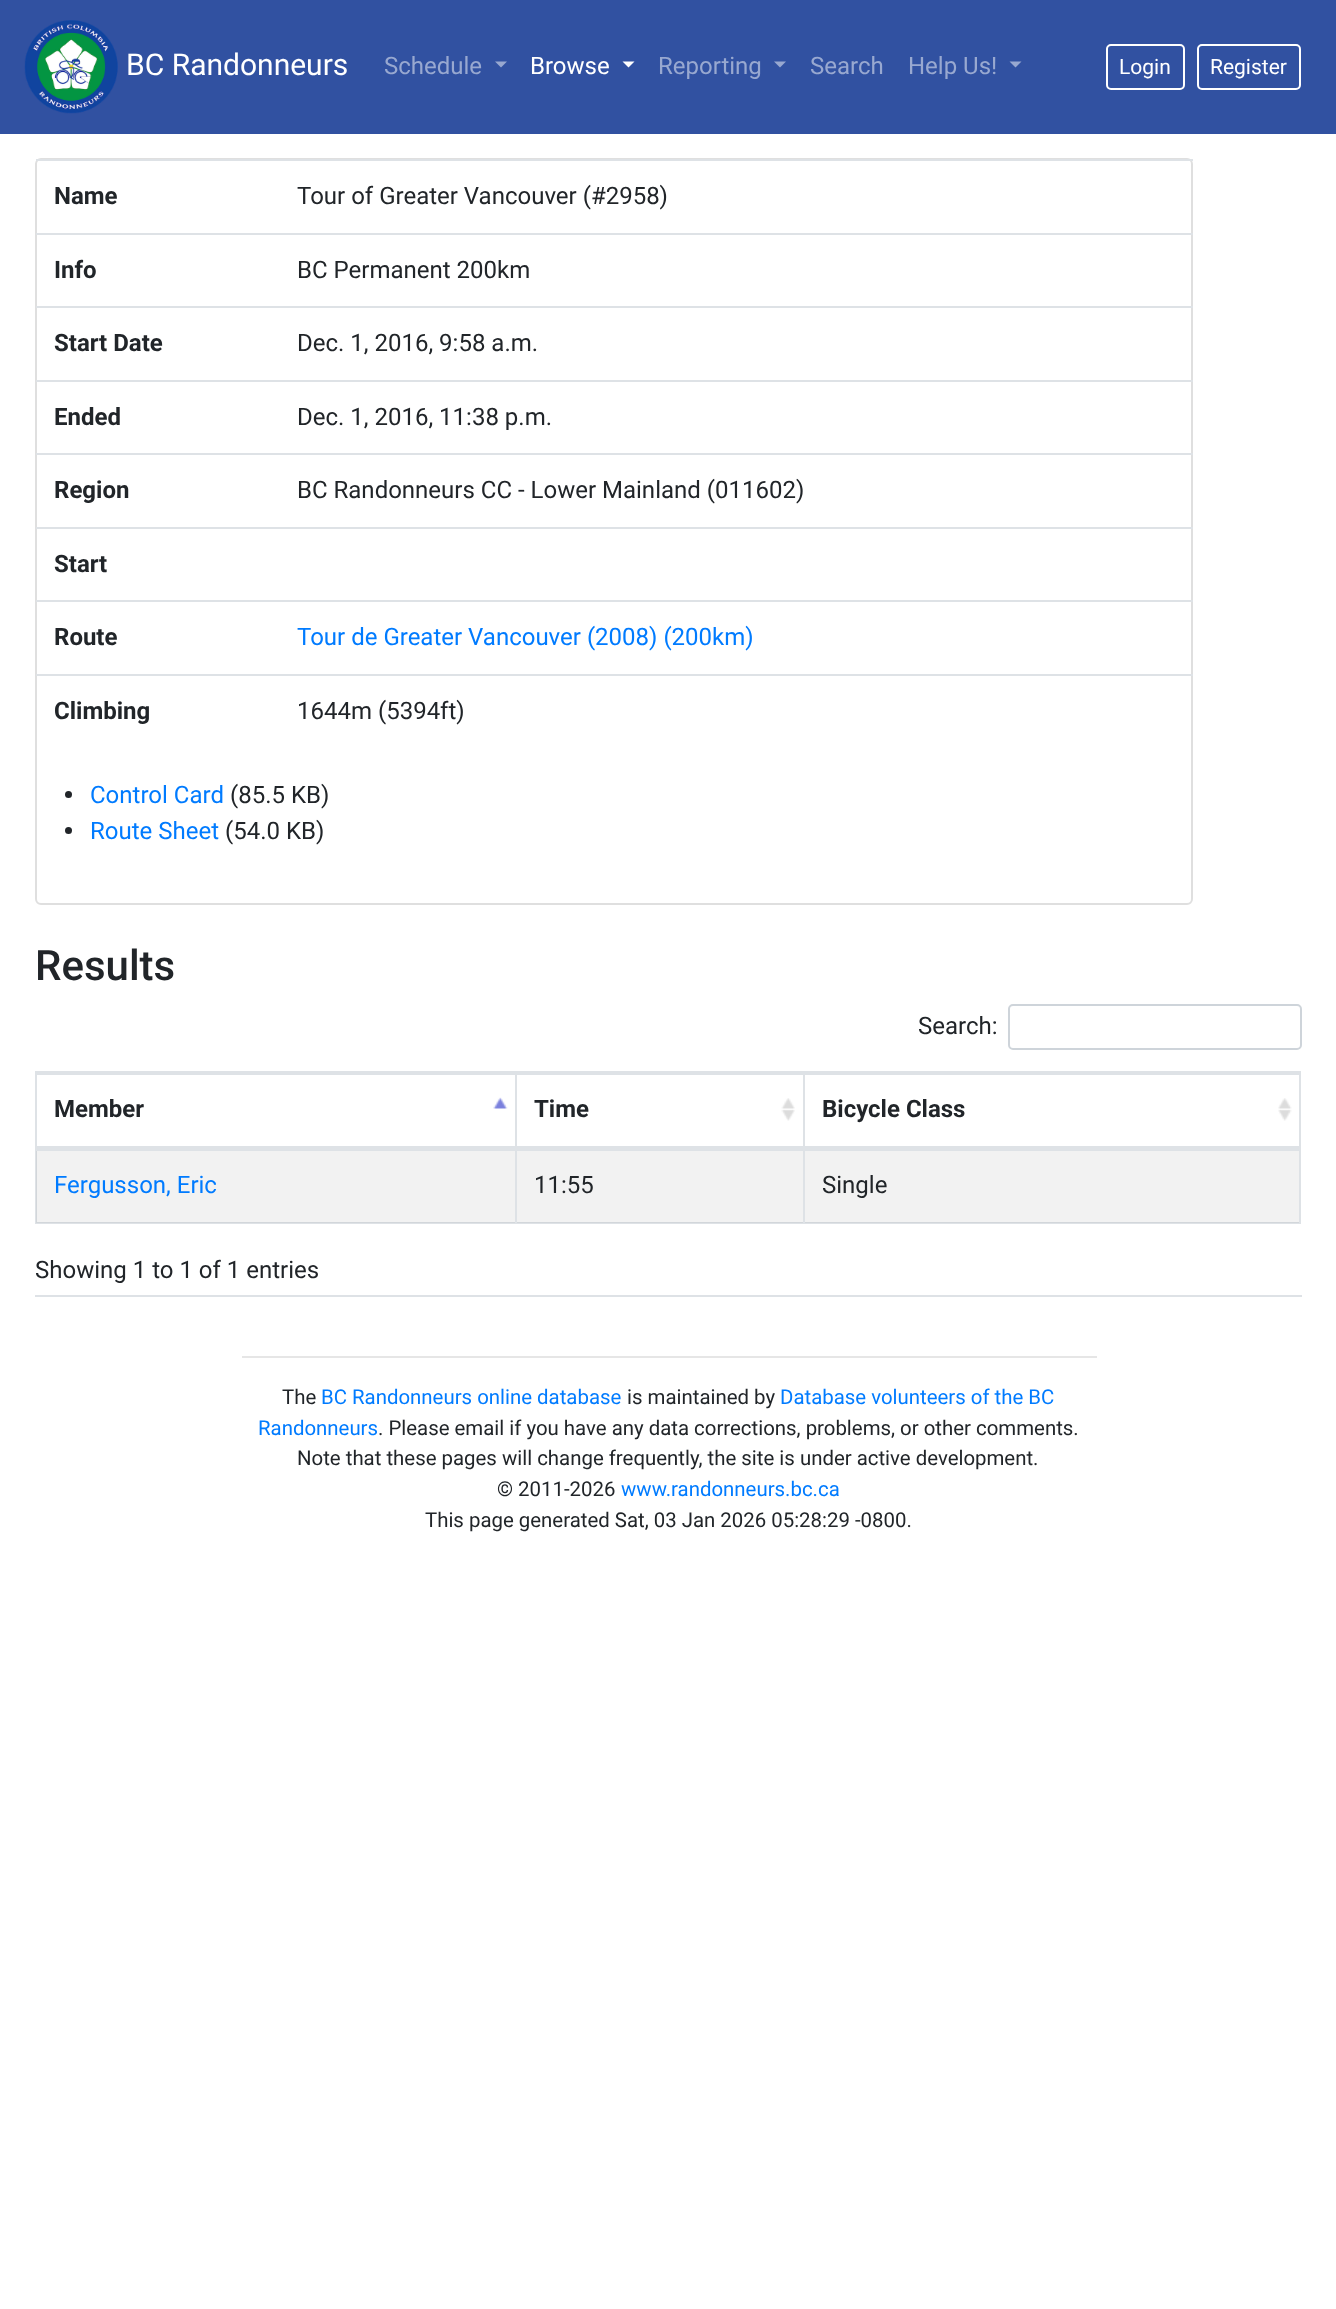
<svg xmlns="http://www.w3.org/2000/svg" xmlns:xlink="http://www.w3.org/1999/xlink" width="1336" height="2309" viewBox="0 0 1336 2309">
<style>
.cls-1{font:30px Roboto;fill:#ffffff}
.cls-2{font:24px Roboto;fill:#98a8d0}
.cls-3{font:24px Roboto;fill:#ffffff}
.cls-4{font:21px Roboto;fill:#ffffff}
.cls-5{font:bold 24px Roboto;fill:#212529}
.cls-6{font:24px Roboto;fill:#212529}
.cls-7{font:24px Roboto;fill:#007bff}
.cls-8{font:500 42px Roboto;fill:#212529}
.cls-9{font:20.4px Roboto;fill:#212529}
.cls-10{font:20.4px Roboto;fill:#007bff}
</style>
<rect width="100%" height="100%" fill="#ffffff"/>
<rect fill="#3151a1" x="0" y="0" width="1336" height="134"/>
<image xlink:href="image0.png" x="24" y="20" width="94" height="94"/>
<path fill="#98a8d0" d="M495 61.5H507L501 67.5Z"/>
<path fill="#ffffff" d="M622.5 61.5H634.5L628.5 67.5Z"/>
<path fill="#98a8d0" d="M774 61.5H786L780 67.5Z"/>
<path fill="#98a8d0" d="M1009.5 61.5H1021.5L1015.5 67.5Z"/>
<rect fill="none" stroke="#ffffff" stroke-width="2" x="1107" y="45" width="77" height="44" rx="4"/>
<rect fill="none" stroke="#ffffff" stroke-width="2" x="1198" y="45" width="102" height="44" rx="4"/>
<rect fill="none" stroke="#dfdfdf" stroke-width="2" x="36" y="159" width="1156" height="745" rx="5"/>
<rect fill="#dee2e6" x="36" y="159" width="1157" height="2"/>
<rect fill="#dee2e6" x="36" y="233" width="1157" height="2"/>
<rect fill="#dee2e6" x="36" y="306" width="1157" height="2"/>
<rect fill="#dee2e6" x="36" y="380" width="1157" height="2"/>
<rect fill="#dee2e6" x="36" y="453" width="1157" height="2"/>
<rect fill="#dee2e6" x="36" y="527" width="1157" height="2"/>
<rect fill="#dee2e6" x="36" y="600" width="1157" height="2"/>
<rect fill="#dee2e6" x="36" y="674" width="1157" height="2"/>
<circle fill="#212529" cx="68.5" cy="794.5" r="3.5"/>
<circle fill="#212529" cx="68.5" cy="830.5" r="3.5"/>
<rect fill="#dee2e6" x="35" y="1295" width="1267" height="2"/>
<rect fill="none" stroke="#ced4da" stroke-width="2" x="1009" y="1005" width="292" height="44" rx="4"/>
<rect fill="none" stroke="#dee2e6" stroke-width="2" x="36" y="1072" width="1264" height="151"/>
<image xlink:href="image1.png" x="493" y="1097" width="15" height="12"/>
<rect fill="#dee2e6" x="36" y="1073" width="480" height="2"/>
<rect fill="#dee2e6" x="515" y="1073" width="2" height="76"/>
<rect fill="#dee2e6" x="36" y="1146" width="480" height="3"/>
<image xlink:href="image2.png" x="781" y="1098" width="14" height="23"/>
<rect fill="#dee2e6" x="516" y="1073" width="288" height="2"/>
<rect fill="#dee2e6" x="803" y="1073" width="2" height="76"/>
<rect fill="#dee2e6" x="516" y="1146" width="783" height="3"/>
<image xlink:href="image3.png" x="1278" y="1098" width="14" height="23"/>
<rect fill="#dee2e6" x="804" y="1073" width="495" height="2"/>
<rect fill="#000000" fill-opacity="0.05" x="36" y="1151" width="1263" height="72"/>
<rect fill="#dee2e6" x="36" y="1149" width="480" height="2"/>
<rect fill="#dee2e6" x="515" y="1149" width="2" height="74"/>
<rect fill="#dee2e6" x="516" y="1149" width="288" height="2"/>
<rect fill="#dee2e6" x="803" y="1149" width="2" height="74"/>
<rect fill="#dee2e6" x="804" y="1149" width="495" height="2"/>
<rect fill="#e6e6e6" x="242" y="1356" width="855" height="2"/>
<text class="cls-1" x="126" y="75">BC Randonneurs</text>
<text class="cls-2" x="384" y="74">Schedule</text>
<text class="cls-3" x="530" y="74">Browse</text>
<text class="cls-2" x="658" y="74">Reporting</text>
<text class="cls-2" x="810" y="74">Search</text>
<text class="cls-2" x="908" y="74">Help Us!</text>
<text class="cls-4" x="1119" y="74">Login</text>
<text class="cls-4" x="1210" y="74">Register</text>
<text class="cls-5" x="54" y="204">Name</text>
<text class="cls-6" x="297" y="204">Tour of Greater Vancouver (#2958)</text>
<text class="cls-5" x="54" y="278">Info</text>
<text class="cls-6" x="297" y="278">BC Permanent 200km</text>
<text class="cls-5" x="54" y="351">Start Date</text>
<text class="cls-6" x="297" y="351">Dec. 1, 2016, 9:58 a.m.</text>
<text class="cls-5" x="54" y="425">Ended</text>
<text class="cls-6" x="297" y="425">Dec. 1, 2016, 11:38 p.m.</text>
<text class="cls-5" x="54" y="498">Region</text>
<text class="cls-6" x="297" y="498">BC Randonneurs CC - Lower Mainland (011602)</text>
<text class="cls-5" x="54" y="572">Start</text>
<text class="cls-5" x="54" y="645">Route</text>
<text class="cls-7" x="297" y="645">Tour de Greater Vancouver (2008) (200km)</text>
<text class="cls-5" x="54" y="719">Climbing</text>
<text class="cls-6" x="297" y="719">1644m (5394ft)</text>
<text class="cls-7" x="90" y="803">Control Card</text>
<text class="cls-6" x="230" y="803">(85.5 KB)</text>
<text class="cls-7" x="90" y="839">Route Sheet</text>
<text class="cls-6" x="225" y="839">(54.0 KB)</text>
<text class="cls-8" x="35" y="980">Results</text>
<text class="cls-6" x="918" y="1034">Search:</text>
<text class="cls-5" x="54" y="1117">Member</text>
<text class="cls-5" x="534" y="1117">Time</text>
<text class="cls-5" x="822" y="1117">Bicycle Class</text>
<text class="cls-7" x="54" y="1193">Fergusson, Eric</text>
<text class="cls-6" x="534" y="1193">11:55</text>
<text class="cls-6" x="822" y="1193">Single</text>
<text class="cls-6" x="35" y="1278">Showing 1 to 1 of 1 entries</text>
<text class="cls-9" x="282" y="1404">The</text>
<text class="cls-10" x="321" y="1404">BC Randonneurs online database</text>
<text class="cls-9" x="627" y="1404">is maintained by</text>
<text class="cls-10" x="780" y="1404">Database volunteers of the BC</text>
<text class="cls-10" x="258" y="1435">Randonneurs</text>
<text class="cls-9" x="378" y="1435">. Please email if you have any data corrections, problems, or other comments.</text>
<text class="cls-9" x="297" y="1465">Note that these pages will change frequently, the site is under active development.</text>
<text class="cls-9" x="497" y="1496">© 2011-2026</text>
<text class="cls-10" x="621" y="1496">www.randonneurs.bc.ca</text>
<text class="cls-9" x="425" y="1527">This page generated Sat, 03 Jan 2026 05:28:29 -0800.</text>
</svg>
